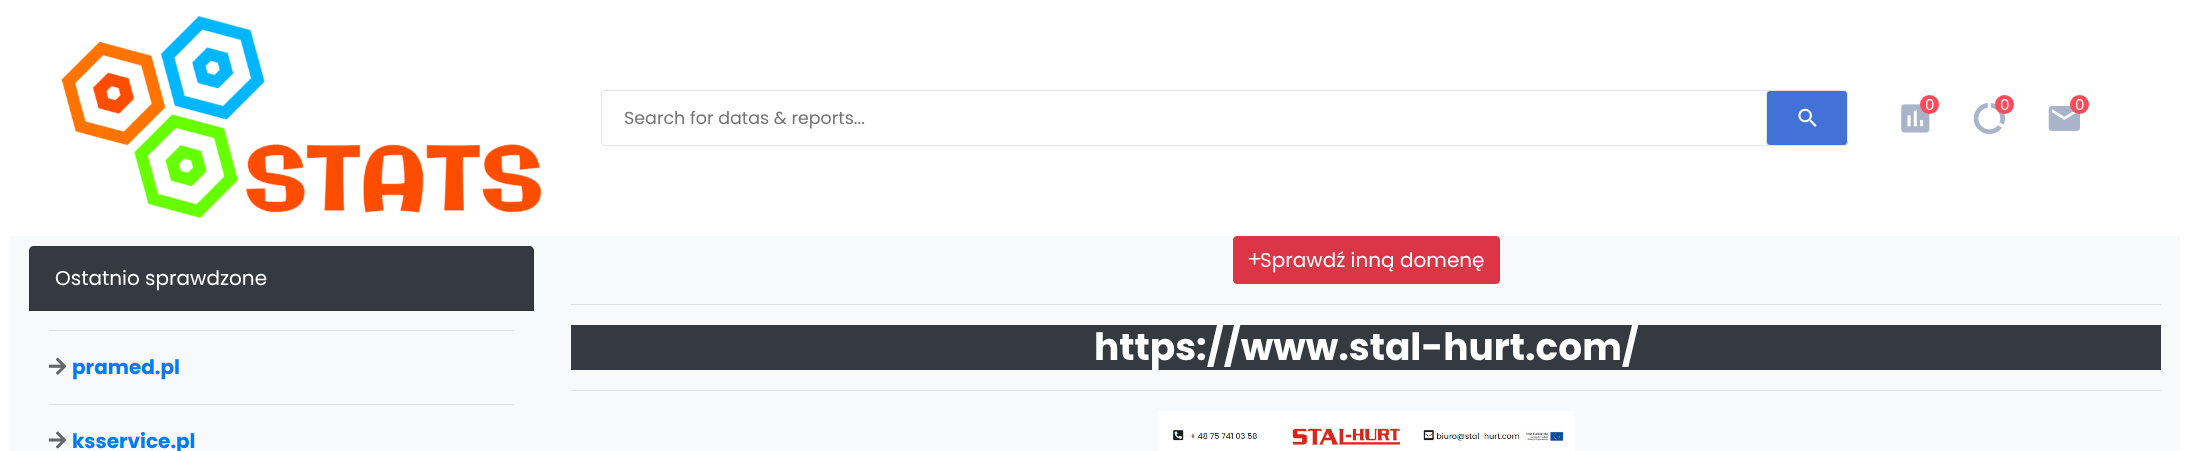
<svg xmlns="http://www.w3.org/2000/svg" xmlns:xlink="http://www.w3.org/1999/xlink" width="2190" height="451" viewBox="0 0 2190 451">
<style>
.cls-1{font:15px Poppins;fill:#ffffff}
.cls-2{font:17.5px Poppins;fill:#757575}
.cls-3{font:20px Poppins;fill:#ffffff}
.cls-4{font:bold 20px Poppins;fill:#007bff}
.cls-5{font:bold 37.5px Poppins;fill:#ffffff}
</style>
<rect width="100%" height="100%" fill="#ffffff"/>
<image xlink:href="image0.png" x="61" y="16" width="481" height="203"/>
<image xlink:href="image1.png" x="1901" y="104" width="29" height="29"/>
<circle fill="#ff4b5a" cx="1929.5" cy="104.5" r="9.5"/>
<image xlink:href="image2.png" x="1973" y="103" width="32" height="31"/>
<circle fill="#ff4b5a" cx="2004.5" cy="104.5" r="9.5"/>
<image xlink:href="image3.png" x="2048" y="105" width="32" height="26"/>
<circle fill="#ff4b5a" cx="2079.5" cy="104.5" r="9.5"/>
<rect fill="none" stroke="#e5e5e5" x="601.5" y="90.5" width="1168" height="55" rx="3.5"/>
<rect fill="#4272d7" stroke="#e5e5e5" x="1766.5" y="90.5" width="81" height="55" rx="3.5"/>
<image xlink:href="image4.png" x="1798" y="108" width="19" height="19"/>
<rect fill="#f8f9fa" x="10" y="236" width="2170" height="215"/>
<path fill="#343a40" d="M34 246H529C532 246 534 248 534 251V311H29V251C29 248 31 246 34 246Z"/>
<path fill="none" stroke="#000000" stroke-opacity="0.12" d="M34 246.5H529C531.5 246.5 533.5 248.5 533.5 251V310.5H29.5V251C29.5 248.5 31.5 246.5 34 246.5Z"/>
<rect fill="#dfe0e1" x="49" y="330" width="465" height="1"/>
<image xlink:href="image5.png" x="48" y="357" width="19" height="18"/>
<rect fill="#dfe0e1" x="49" y="404" width="465" height="1"/>
<image xlink:href="image6.png" x="48" y="431" width="19" height="18"/>
<rect fill="#dc3545" stroke="#dc3545" x="1233.5" y="236.5" width="266" height="47" rx="3.5"/>
<image xlink:href="image7.png" x="1248" y="252" width="13" height="13"/>
<rect fill="#dfe0e1" x="571" y="304" width="1590" height="1"/>
<rect fill="#343a40" x="571" y="325" width="1590" height="45"/>
<rect fill="#dfe0e1" x="571" y="390" width="1590" height="1"/>
<image xlink:href="image8.png" x="1158" y="411" width="417" height="40"/>
<text class="cls-1" x="1925" y="110">0</text>
<text class="cls-1" x="2000" y="110">0</text>
<text class="cls-1" x="2075" y="110">0</text>
<text class="cls-2" x="624" y="124">Search for datas &amp; reports...</text>
<text class="cls-3" x="55" y="285">Ostatnio sprawdzone</text>
<text class="cls-4" x="72" y="374">pramed.pl</text>
<text class="cls-4" x="72" y="448">ksservice.pl</text>
<text class="cls-3" x="1260" y="267">Sprawdź inną domenę</text>
<text class="cls-5" x="1094" y="360">https://www.stal-hurt.com/</text>
</svg>
